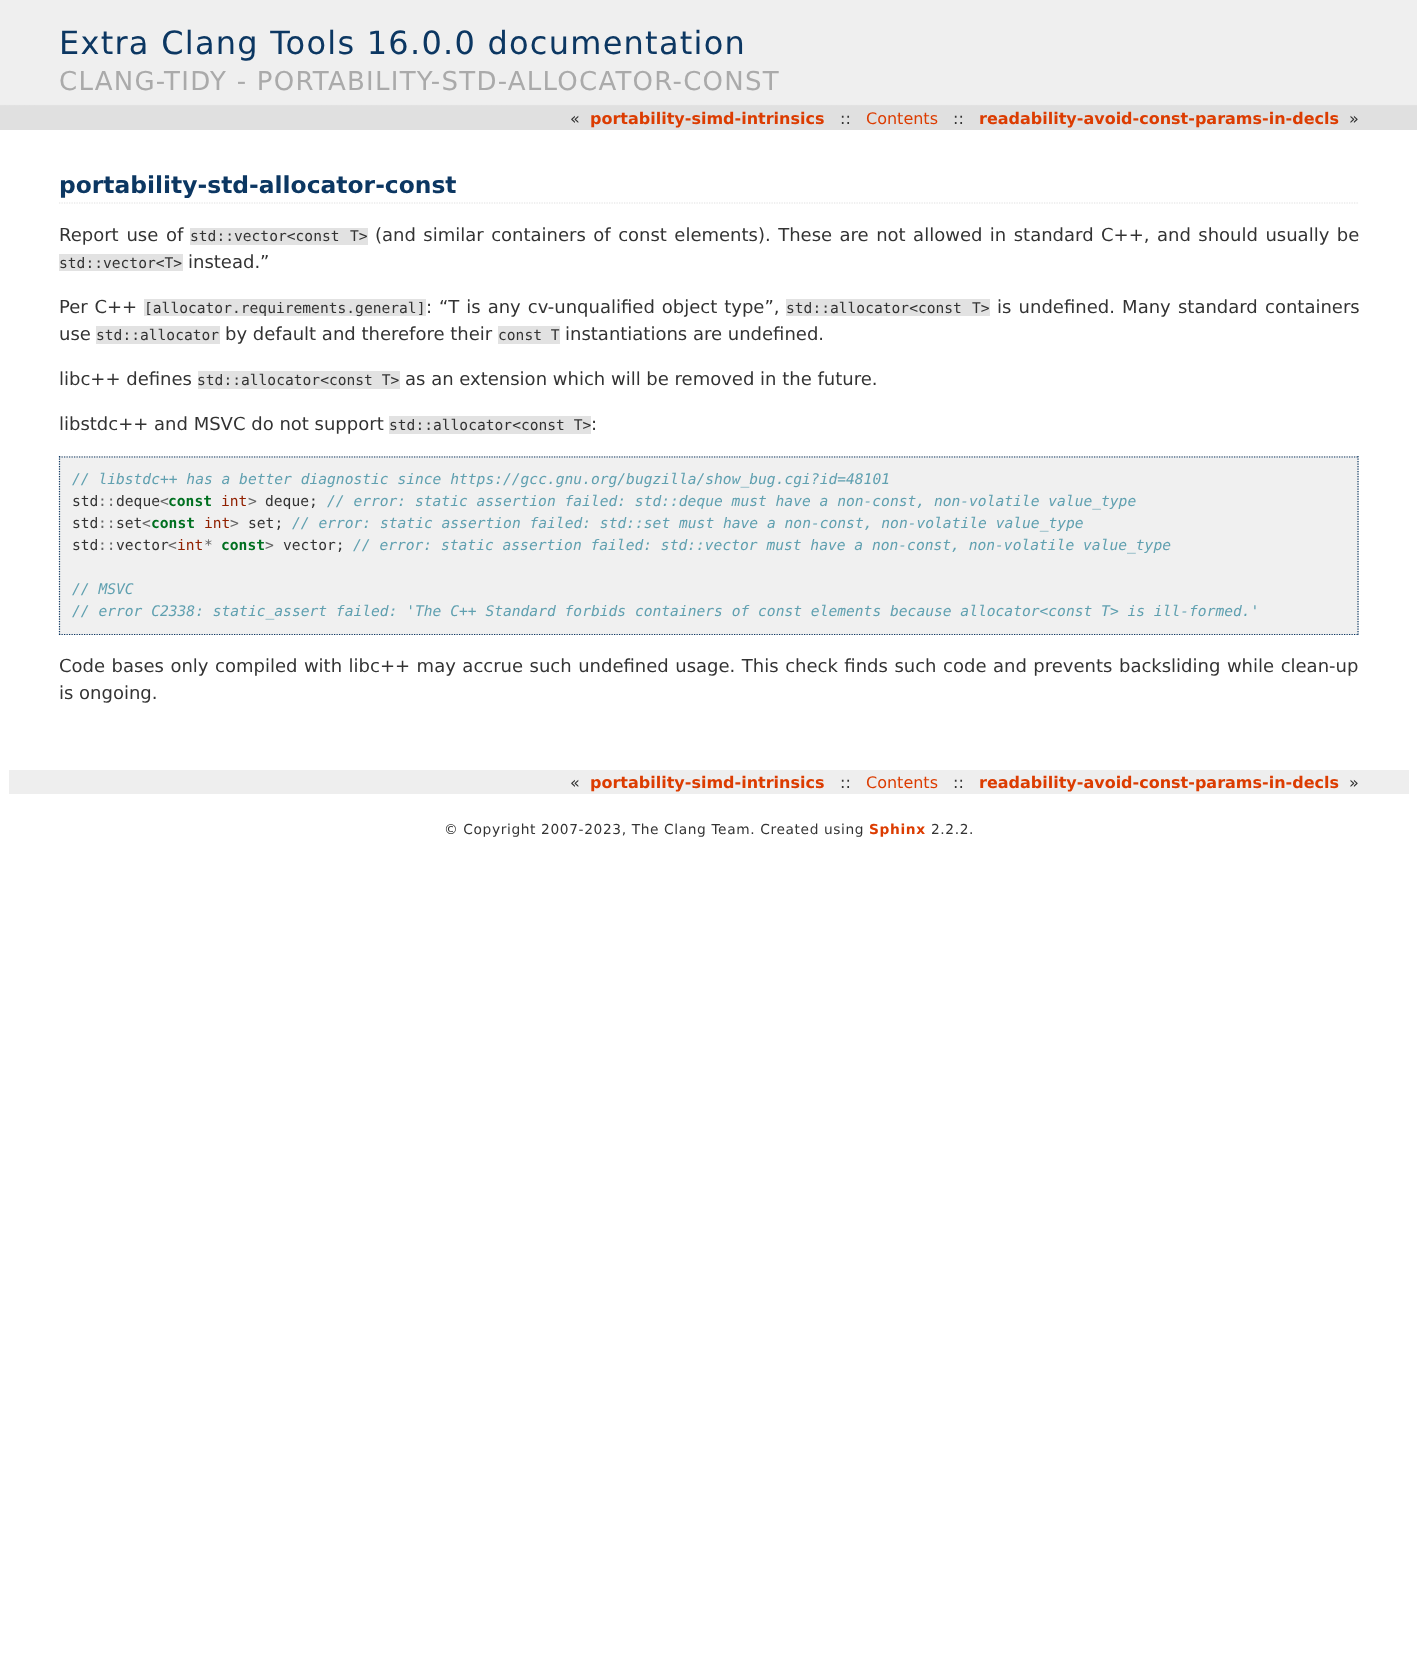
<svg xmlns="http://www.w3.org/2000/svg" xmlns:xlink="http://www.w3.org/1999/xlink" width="1417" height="1666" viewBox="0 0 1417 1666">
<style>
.cls-1{font:32px DejaVu Sans;letter-spacing:1.25px;fill:#0c3762}
.cls-2{font:26px DejaVu Sans;letter-spacing:1.25px;fill:#aaaaaa}
.cls-3{font:16px DejaVu Sans;fill:#333333}
.cls-4{font:bold 16px DejaVu Sans;fill:#dc3c01}
.cls-5{font:16px DejaVu Sans;fill:#dc3c01}
.cls-6{font:bold 23.4px DejaVu Sans;fill:#0c3762}
.cls-7{font:18px DejaVu Sans;fill:#333333}
.cls-8{font:14.62px DejaVu Sans Mono;fill:#333333}
.cls-9{font:italic 14.62px DejaVu Sans Mono;fill:#60a0b0}
.cls-10{font:14.62px DejaVu Sans Mono;fill:#666666}
.cls-11{font:bold 14.62px DejaVu Sans Mono;fill:#007020}
.cls-12{font:14.62px DejaVu Sans Mono;fill:#902000}
.cls-13{font:13.75px DejaVu Sans;letter-spacing:0.62px;fill:#333333}
.cls-14{font:bold 13.75px DejaVu Sans;letter-spacing:0.62px;fill:#dc3c01}
</style>
<rect width="100%" height="100%" fill="#ffffff"/>
<image xlink:href="image0.png" x="0" y="0" width="1417" height="130"/>
<path fill="none" stroke="#e0e0e0" stroke-width="1.2" stroke-dasharray="1.25 1.25" d="M59 203H1359"/>
<rect fill="#e2e2e2" x="190" y="228" width="178" height="17"/>
<rect fill="#e2e2e2" x="59" y="254" width="124" height="17"/>
<rect fill="#e2e2e2" x="144" y="299" width="282" height="17"/>
<rect fill="#e2e2e2" x="786" y="299" width="204" height="17"/>
<rect fill="#e2e2e2" x="96" y="326" width="124" height="18"/>
<rect fill="#e2e2e2" x="498" y="326" width="62" height="18"/>
<rect fill="#e2e2e2" x="198" y="371" width="202" height="18"/>
<rect fill="#e2e2e2" x="389" y="416" width="202" height="18"/>
<rect fill="#f0f0f0" x="59" y="456" width="1300" height="179"/>
<path fill="none" stroke="#0c3762" stroke-width="1.2" stroke-dasharray="1.25 1.25" d="M59 457H1359"/>
<path fill="none" stroke="#0c3762" stroke-width="1.2" stroke-dasharray="1.25 1.25" d="M1358 456V635"/>
<path fill="none" stroke="#0c3762" stroke-width="1.2" stroke-dasharray="1.25 1.25" d="M59 634.5H1359"/>
<path fill="none" stroke="#0c3762" stroke-width="1.2" stroke-dasharray="1.25 1.25" d="M59.5 456V635"/>
<rect fill="#eeeeee" x="9" y="770" width="1400" height="24"/>
<text class="cls-1" x="59" y="54">Extra Clang Tools 16.0.0 documentation</text>
<text class="cls-2" x="59" y="90">CLANG-TIDY - PORTABILITY-STD-ALLOCATOR-CONST</text>
<text class="cls-3" x="570" y="124">«</text>
<text class="cls-4" x="590" y="124">portability-simd-intrinsics</text>
<text class="cls-3" x="840" y="124">::</text>
<text class="cls-5" x="866" y="124">Contents</text>
<text class="cls-3" x="953" y="124">::</text>
<text class="cls-4" x="979" y="124">readability-avoid-const-params-in-decls</text>
<text class="cls-3" x="1349" y="124">»</text>
<text class="cls-6" x="59" y="193">portability-std-allocator-const</text>
<text class="cls-7" x="59" y="241" word-spacing="2">Report use of</text>
<text class="cls-8" x="190" y="241">std::vector&lt;const</text>
<text class="cls-8" x="350" y="241">T&gt;</text>
<text class="cls-7" x="375" y="241" word-spacing="1.75">(and similar containers of const elements). These are not allowed in standard C++, and should usually be</text>
<text class="cls-8" x="59" y="268">std::vector&lt;T&gt;</text>
<text class="cls-7" x="188" y="268">instead.”</text>
<text class="cls-7" x="59" y="313" word-spacing="1">Per C++</text>
<text class="cls-8" x="144" y="313">[allocator.requirements.general]</text>
<text class="cls-7" x="426" y="313" word-spacing="1.25">: “T is any cv-unqualified object type”,</text>
<text class="cls-8" x="786" y="313">std::allocator&lt;const</text>
<text class="cls-8" x="972" y="313">T&gt;</text>
<text class="cls-7" x="997" y="313" word-spacing="1.5">is undefined. Many standard containers</text>
<text class="cls-7" x="59" y="340">use</text>
<text class="cls-8" x="96" y="340">std::allocator</text>
<text class="cls-7" x="225" y="340">by default and therefore their</text>
<text class="cls-8" x="498" y="340">const T</text>
<text class="cls-7" x="565" y="340">instantiations are undefined.</text>
<text class="cls-7" x="59" y="385">libc++ defines</text>
<text class="cls-8" x="197" y="385">std::allocator&lt;const T&gt;</text>
<text class="cls-7" x="405" y="385">as an extension which will be removed in the future.</text>
<text class="cls-7" x="59" y="430">libstdc++ and MSVC do not support</text>
<text class="cls-8" x="389" y="430">std::allocator&lt;const T&gt;</text>
<text class="cls-7" x="591" y="430">:</text>
<text class="cls-9" x="72" y="484">// libstdc++ has a better diagnostic since https://gcc.gnu.org/bugzilla/show_bug.cgi?id=48101</text>
<text class="cls-8" x="72" y="506">std</text>
<text class="cls-10" x="98" y="506">::</text>
<text class="cls-8" x="116" y="506">deque</text>
<text class="cls-10" x="160" y="506">&lt;</text>
<text class="cls-11" x="168" y="506">const</text>
<text class="cls-12" x="221" y="506">int</text>
<text class="cls-10" x="248" y="506">&gt;</text>
<text class="cls-8" x="265" y="506">deque;</text>
<text class="cls-9" x="327" y="506">// error: static assertion failed: std::deque must have a non-const, non-volatile value_type</text>
<text class="cls-8" x="72" y="528">std</text>
<text class="cls-10" x="98" y="528">::</text>
<text class="cls-8" x="116" y="528">set</text>
<text class="cls-10" x="142" y="528">&lt;</text>
<text class="cls-11" x="151" y="528">const</text>
<text class="cls-12" x="204" y="528">int</text>
<text class="cls-10" x="230" y="528">&gt;</text>
<text class="cls-8" x="248" y="528">set;</text>
<text class="cls-9" x="292" y="528">// error: static assertion failed: std::set must have a non-const, non-volatile value_type</text>
<text class="cls-8" x="72" y="550">std</text>
<text class="cls-10" x="98" y="550">::</text>
<text class="cls-8" x="116" y="550">vector</text>
<text class="cls-10" x="168" y="550">&lt;</text>
<text class="cls-12" x="177" y="550">int</text>
<text class="cls-10" x="204" y="550">*</text>
<text class="cls-11" x="221" y="550">const</text>
<text class="cls-10" x="265" y="550">&gt;</text>
<text class="cls-8" x="283" y="550">vector;</text>
<text class="cls-9" x="353" y="550">// error: static assertion failed: std::vector must have a non-const, non-volatile value_type</text>
<text class="cls-9"><tspan x="72" y="594">// MSVC</tspan><tspan x="72" y="616">// error C2338: static_assert failed: 'The C++ Standard forbids containers of const elements because allocator&lt;const T&gt; is ill-formed.'</tspan></text>
<text class="cls-7"><tspan x="59" y="672" word-spacing="0.8">Code bases only compiled with libc++ may accrue such undefined usage. This check finds such code and prevents backsliding while clean-up</tspan><tspan x="59" y="699">is ongoing.</tspan></text>
<text class="cls-3" x="570" y="788">«</text>
<text class="cls-4" x="590" y="788">portability-simd-intrinsics</text>
<text class="cls-3" x="840" y="788">::</text>
<text class="cls-5" x="866" y="788">Contents</text>
<text class="cls-3" x="953" y="788">::</text>
<text class="cls-4" x="979" y="788">readability-avoid-const-params-in-decls</text>
<text class="cls-3" x="1349" y="788">»</text>
<text class="cls-13" x="444" y="834">© Copyright 2007-2023, The Clang Team. Created using</text>
<text class="cls-14" x="869" y="834">Sphinx</text>
<text class="cls-13" x="931" y="834">2.2.2.</text>
</svg>
